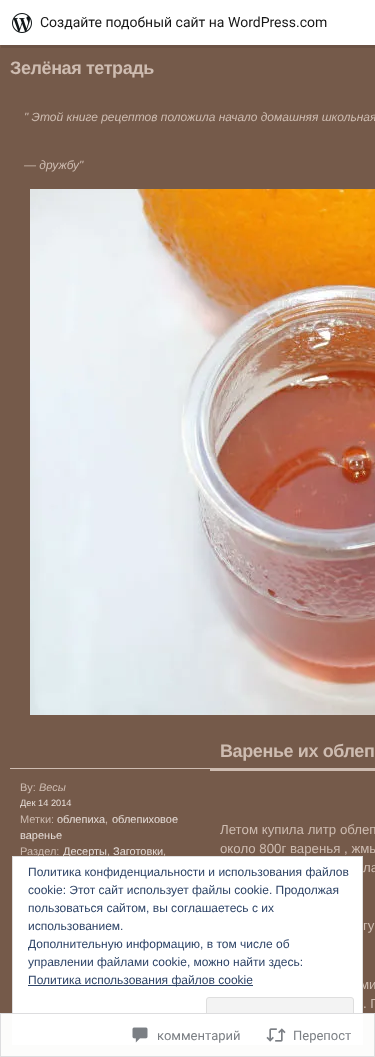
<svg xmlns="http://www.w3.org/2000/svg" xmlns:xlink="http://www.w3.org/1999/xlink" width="375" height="1057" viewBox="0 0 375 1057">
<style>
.cls-1{font:14px Roboto;fill:#171717}
.cls-2{font:bold 18px Liberation Sans;letter-spacing:-0.4px;fill:#cebcb1}
.cls-3{font:italic 12px Liberation Sans;fill:#cebcb1}
.cls-4{font:11px Liberation Sans;fill:#cebcb1}
.cls-5{font:italic 11px Liberation Sans;fill:#cebcb1}
.cls-6{font:9.25px Liberation Sans;fill:#e6ddd8}
.cls-7{font:11px Liberation Sans;fill:#e6ddd8}
.cls-8{font:13.25px Liberation Sans;fill:#cebcb1}
.cls-9{font:12px Liberation Sans;fill:#2e4467}
.cls-10{font:13px Roboto;fill:#7b7f84}
</style>
<rect width="100%" height="100%" fill="#755a4a"/>
<path fill="#000000" fill-opacity="0.08" d="M1 45V48H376V3H375V45Z"/>
<rect fill="#ffffff" x="0" y="0" width="375" height="45"/>
<image xlink:href="image0.png" x="12" y="13" width="20" height="20"/>
<image xlink:href="image1.png" x="30" y="189" width="345" height="526"/>
<rect fill="#cebcb1" x="10" y="768" width="365" height="1"/>
<rect fill="#cebcb1" x="210" y="769" width="165" height="2"/>
<text class="cls-1" x="40" y="27">Создайте подобный сайт на WordPress.com</text>
<text class="cls-2" x="10" y="74">Зелёная тетрадь</text>
<text class="cls-3" x="24" y="121">" Этой книге рецептов положила начало домашняя школьная</text>
<text class="cls-3" x="24" y="169">— дружбу"</text>
<text class="cls-2" x="220" y="757">Варенье их облеп</text>
<text class="cls-4" x="20" y="791">By:</text>
<text class="cls-5" x="39" y="791">Весы</text>
<text class="cls-6" x="20" y="806">Дек 14 2014</text>
<text class="cls-4" x="20" y="823">Метки:</text>
<text class="cls-7" x="57" y="823">облепиха</text>
<text class="cls-4" x="105" y="823">,</text>
<text class="cls-7" x="112" y="823">облепиховое</text>
<text class="cls-7" x="20" y="839">варенье</text>
<text class="cls-4" x="20" y="855">Раздел:</text>
<text class="cls-7" x="63" y="855">Десерты</text>
<text class="cls-4" x="107" y="855">,</text>
<text class="cls-7" x="113" y="855">Заготовки</text>
<text class="cls-4" x="163" y="855">,</text>
<text class="cls-8"><tspan x="220" y="834">Летом купила литр облеп</tspan><tspan x="220" y="853">около 800г варенья , жмы</tspan></text>
<text class="cls-8" x="363" y="872">ла</text>
<text class="cls-8" x="363" y="930">гу</text>
<text class="cls-8" x="360" y="989">ми</text>
<text class="cls-8" x="363" y="1008">. П</text>
<rect fill="#ffffff" stroke="#dedede" x="12.5" y="856.5" width="350" height="188"/>
<text class="cls-9"><tspan x="28" y="876">Политика конфиденциальности и использования файлов</tspan><tspan x="28" y="894">сookie: Этот сайт использует файлы cookie. Продолжая</tspan><tspan x="28" y="912">пользоваться сайтом, вы соглашаетесь с их</tspan><tspan x="28" y="930">использованием.</tspan><tspan x="28" y="948">Дополнительную информацию, в том числе об</tspan><tspan x="28" y="966">управлении файлами cookie, можно найти здесь:</tspan></text>
<rect fill="#2e4467" x="28" y="985" width="225" height="1"/>
<text class="cls-9" x="28" y="984">Политика использования файлов cookie</text>
<rect fill="#f3f3f3" stroke="#dedede" x="206.5" y="997.5" width="147" height="38" rx="2.5"/>
<rect fill="#ffffff" fill-opacity="0.98" x="0" y="1013" width="375" height="44"/>
<rect fill="none" stroke="#dcdcde" stroke-opacity="0.98" x="0.5" y="1013.5" width="374" height="43"/>
<image xlink:href="image2.png" x="132" y="1027" width="16" height="16"/>
<text class="cls-10" x="157" y="1040">комментарий</text>
<image xlink:href="image3.png" x="266" y="1028" width="20" height="14"/>
<text class="cls-10" x="293" y="1040">Перепост</text>
</svg>
